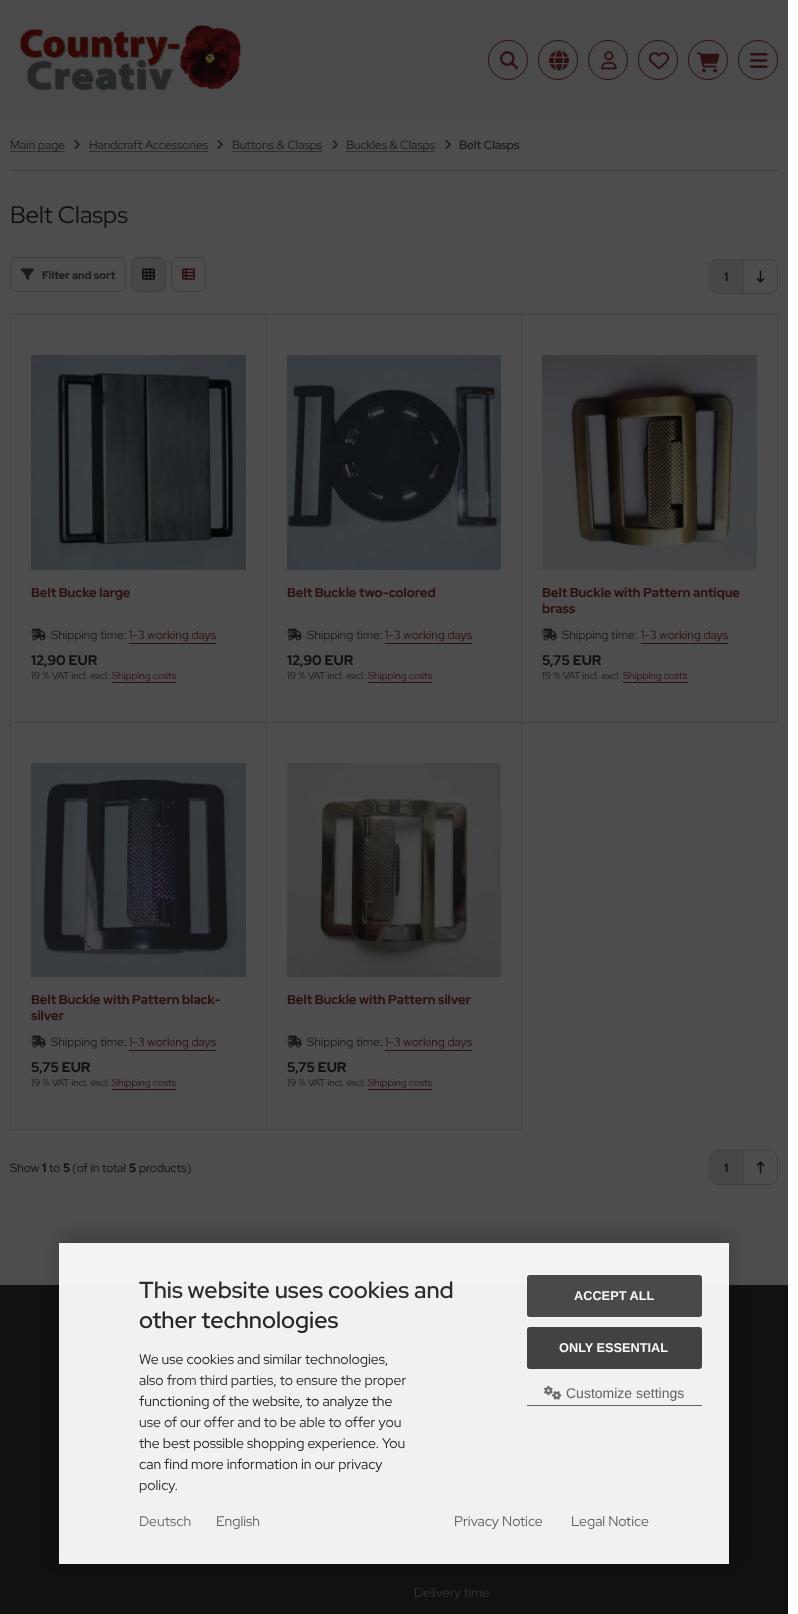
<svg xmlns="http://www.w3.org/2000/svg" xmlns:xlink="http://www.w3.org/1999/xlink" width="798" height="1614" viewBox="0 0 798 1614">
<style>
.cls-1{font:12px Red Hat Display;fill:#1a1a1a}
.cls-2{font:600 12px Red Hat Display;fill:#1a1a1a}
.cls-3{font:24px Red Hat Display;fill:#0f0f0f}
.cls-4{font:bold 11px Red Hat Display;fill:#1a1a1a}
.cls-5{font:bold 12px Red Hat Display;fill:#0f0f0f}
.cls-6{font:bold 13px Red Hat Display;fill:#2e0f0f}
.cls-7{font:12px Red Hat Display;fill:#2e0f0f}
.cls-8{font:bold 14px Red Hat Display;fill:#0f0f0f}
.cls-9{font:10px Red Hat Display;fill:#1a1a1a}
.cls-10{font:10px Red Hat Display;fill:#2e0f0f}
.cls-11{font:12px Red Hat Display;fill:#0f0f0f}
.cls-12{font:13px Red Hat Display;fill:#333333}
.cls-13{font:600 23.25px Red Hat Display;fill:#2c2c2c}
.cls-14{font:600 23.25px Red Hat Display;fill:#252525}
.cls-15{font:14px Red Hat Display;fill:#252525}
.cls-16{font:14px Red Hat Display;fill:#2c2c2c}
.cls-17{font:bold 12.75px Liberation Sans;fill:#f8f8f8}
.cls-18{font:14px Liberation Sans;fill:#636363}
.cls-19{font:14px Red Hat Display;fill:#6a6a6a}
.cls-20{font:14px Red Hat Display;fill:#636363}
</style>
<defs>
<clipPath id="clip1"><path d="M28 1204H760V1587H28ZM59 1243H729V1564H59Z" clip-rule="evenodd"/></clipPath>
</defs>
<rect width="100%" height="100%" fill="#ffffff"/>
<rect fill="#4d4d4d" x="0" y="120" width="788" height="1165"/>
<rect fill="#4a4a4a" x="0" y="0" width="788" height="120"/>
<image xlink:href="image0.png" x="20" y="25" width="221" height="66"/>
<circle fill="none" stroke="#2e0f0f" cx="508" cy="60" r="19.5"/>
<image xlink:href="image1.png" x="500" y="51" width="18" height="19"/>
<circle fill="none" stroke="#2e0f0f" cx="558" cy="60" r="19.5"/>
<image xlink:href="image2.png" x="549" y="50" width="20" height="21"/>
<circle fill="none" stroke="#2e0f0f" cx="608" cy="60" r="19.5"/>
<image xlink:href="image3.png" x="601" y="51" width="16" height="19"/>
<circle fill="none" stroke="#2e0f0f" cx="658" cy="60" r="19.5"/>
<image xlink:href="image4.png" x="649" y="52" width="20" height="18"/>
<circle fill="none" stroke="#2e0f0f" cx="708" cy="60" r="19.5"/>
<image xlink:href="image5.png" x="697" y="52" width="23" height="21"/>
<circle fill="none" stroke="#2e0f0f" cx="758" cy="60" r="19.5"/>
<image xlink:href="image6.png" x="750" y="53" width="18" height="15"/>
<rect fill="#414141" x="10" y="170" width="768" height="1"/>
<rect fill="#2e2e2e" x="10" y="151" width="55" height="1"/>
<image xlink:href="image7.png" x="74" y="140" width="6" height="9"/>
<rect fill="#2e2e2e" x="89" y="151" width="119" height="1"/>
<image xlink:href="image7.png" x="217" y="140" width="6" height="9"/>
<rect fill="#2e2e2e" x="232" y="151" width="90" height="1"/>
<image xlink:href="image7.png" x="332" y="140" width="6" height="9"/>
<rect fill="#2e2e2e" x="346" y="151" width="89" height="1"/>
<image xlink:href="image7.png" x="445" y="140" width="6" height="9"/>
<rect fill="none" stroke="#3d3d3d" x="10.5" y="257.5" width="115" height="34" rx="7.5"/>
<image xlink:href="image8.png" x="21" y="268" width="13" height="12"/>
<rect fill="#474747" stroke="#3d3d3d" x="131.5" y="257.5" width="34" height="34" rx="7.5"/>
<image xlink:href="image9.png" x="142" y="268" width="13" height="12"/>
<rect fill="none" stroke="#3d3d3d" x="171.5" y="257.5" width="34" height="34" rx="7.5"/>
<image xlink:href="image10.png" x="182" y="268" width="13" height="12"/>
<rect fill="none" stroke="#414141" x="709.5" y="259.5" width="68" height="34" rx="7.5"/>
<path fill="#474747" d="M717 260H743V293H717C713 293 710 290 710 286V267C710 263 713 260 717 260Z"/>
<rect fill="#414141" x="743" y="260" width="1" height="33"/>
<image xlink:href="image11.png" x="756" y="270" width="9" height="13"/>
<rect fill="#444444" x="10" y="314" width="768" height="1"/>
<rect fill="#444444" x="10" y="314" width="1" height="816"/>
<rect fill="#444444" x="266" y="315" width="1" height="815"/>
<rect fill="#444444" x="11" y="722" width="256" height="1"/>
<image xlink:href="image12.png" x="31" y="355" width="215" height="215"/>
<image xlink:href="image13.png" x="31" y="628" width="15" height="13"/>
<rect fill="#2e0f0f" x="129" y="643" width="87" height="1"/>
<rect fill="#2e0f0f" x="112" y="682" width="64" height="1"/>
<rect fill="#444444" x="521" y="315" width="1" height="815"/>
<rect fill="#444444" x="267" y="722" width="255" height="1"/>
<image xlink:href="image14.png" x="287" y="355" width="214" height="215"/>
<image xlink:href="image13.png" x="287" y="628" width="15" height="13"/>
<rect fill="#2e0f0f" x="385" y="643" width="87" height="1"/>
<rect fill="#2e0f0f" x="368" y="682" width="64" height="1"/>
<rect fill="#444444" x="777" y="315" width="1" height="408"/>
<rect fill="#444444" x="522" y="722" width="256" height="1"/>
<image xlink:href="image15.png" x="542" y="355" width="215" height="215"/>
<image xlink:href="image13.png" x="542" y="628" width="15" height="13"/>
<rect fill="#2e0f0f" x="641" y="643" width="87" height="1"/>
<rect fill="#2e0f0f" x="623" y="682" width="65" height="1"/>
<rect fill="#444444" x="11" y="1129" width="511" height="1"/>
<image xlink:href="image16.png" x="31" y="763" width="215" height="214"/>
<image xlink:href="image13.png" x="31" y="1035" width="15" height="13"/>
<rect fill="#2e0f0f" x="129" y="1050" width="87" height="1"/>
<rect fill="#2e0f0f" x="112" y="1089" width="64" height="1"/>
<image xlink:href="image17.png" x="287" y="763" width="214" height="214"/>
<image xlink:href="image13.png" x="287" y="1035" width="15" height="13"/>
<rect fill="#2e0f0f" x="385" y="1050" width="87" height="1"/>
<rect fill="#2e0f0f" x="368" y="1089" width="64" height="1"/>
<rect fill="none" stroke="#414141" x="709.5" y="1150.5" width="68" height="34" rx="7.5"/>
<path fill="#474747" d="M717 1151H743V1184H717C713 1184 710 1181 710 1177V1158C710 1154 713 1151 717 1151Z"/>
<rect fill="#414141" x="743" y="1151" width="1" height="33"/>
<image xlink:href="image18.png" x="756" y="1161" width="9" height="13"/>
<rect fill="#101111" x="0" y="1285" width="788" height="329"/>
<g clip-path="url(#clip1)">
<rect fill="#000000" fill-opacity="0.19" filter="blur(10px)" x="59" y="1235" width="670" height="321"/>
</g>
<rect fill="#f9f9f9" fill-opacity="0.97" x="59" y="1243" width="670" height="321"/>
<rect fill="#494949" x="527" y="1275" width="175" height="42" rx="3"/>
<rect fill="#424242" x="527" y="1327" width="175" height="42" rx="3"/>
<rect fill="#636363" x="527" y="1405" width="175" height="1"/>
<image xlink:href="image19.png" x="544" y="1386" width="18" height="14"/>
<text class="cls-1" x="10" y="149">Main page</text>
<text class="cls-1" x="89" y="149">Handcraft Accessories</text>
<text class="cls-1" x="232" y="149">Buttons &amp; Clasps</text>
<text class="cls-1" x="346" y="149">Buckles &amp; Clasps</text>
<text class="cls-2" x="459" y="149">Belt Clasps</text>
<text class="cls-3" x="10" y="223">Belt Clasps</text>
<text class="cls-4" x="42" y="279">Filter and sort</text>
<text class="cls-5" x="724" y="281">1</text>
<text class="cls-6" x="31" y="597">Belt Bucke large</text>
<text class="cls-1" x="51" y="639">Shipping time:</text>
<text class="cls-7" x="129" y="639">1-3 working days</text>
<text class="cls-8" x="31" y="665">12,90 EUR</text>
<text class="cls-9" x="31" y="679">19 % VAT incl. excl.</text>
<text class="cls-10" x="112" y="679">Shipping costs</text>
<text class="cls-6" x="287" y="597">Belt Buckle two-colored</text>
<text class="cls-1" x="307" y="639">Shipping time:</text>
<text class="cls-7" x="385" y="639">1-3 working days</text>
<text class="cls-8" x="287" y="665">12,90 EUR</text>
<text class="cls-9" x="287" y="679">19 % VAT incl. excl.</text>
<text class="cls-10" x="368" y="679">Shipping costs</text>
<text class="cls-6"><tspan x="542" y="597">Belt Buckle with Pattern antique</tspan><tspan x="542" y="613">brass</tspan></text>
<text class="cls-1" x="562" y="639">Shipping time:</text>
<text class="cls-7" x="641" y="639">1-3 working days</text>
<text class="cls-8" x="542" y="665">5,75 EUR</text>
<text class="cls-9" x="542" y="679">19 % VAT incl. excl.</text>
<text class="cls-10" x="623" y="679">Shipping costs</text>
<text class="cls-6"><tspan x="31" y="1004">Belt Buckle with Pattern black-</tspan><tspan x="31" y="1020">silver</tspan></text>
<text class="cls-1" x="51" y="1046">Shipping time:</text>
<text class="cls-7" x="129" y="1046">1-3 working days</text>
<text class="cls-8" x="31" y="1072">5,75 EUR</text>
<text class="cls-9" x="31" y="1086">19 % VAT incl. excl.</text>
<text class="cls-10" x="112" y="1086">Shipping costs</text>
<text class="cls-6" x="287" y="1004">Belt Buckle with Pattern silver</text>
<text class="cls-1" x="307" y="1046">Shipping time:</text>
<text class="cls-7" x="385" y="1046">1-3 working days</text>
<text class="cls-8" x="287" y="1072">5,75 EUR</text>
<text class="cls-9" x="287" y="1086">19 % VAT incl. excl.</text>
<text class="cls-10" x="368" y="1086">Shipping costs</text>
<text class="cls-11" x="10" y="1172">Show</text>
<text class="cls-5" x="42" y="1172">1</text>
<text class="cls-11" x="49" y="1172">to</text>
<text class="cls-5" x="63" y="1172">5</text>
<text class="cls-11" x="72" y="1172">(of in total</text>
<text class="cls-5" x="129" y="1172">5</text>
<text class="cls-11" x="139" y="1172">products)</text>
<text class="cls-5" x="724" y="1172">1</text>
<text class="cls-12" x="414" y="1597">Delivery time</text>
<text class="cls-13" x="139" y="1298">This website uses cookies and</text>
<text class="cls-14" x="139" y="1328">other technologies</text>
<text class="cls-15" x="139" y="1364">We use cookies and similar technologies,</text>
<text class="cls-16" x="139" y="1385">also from third parties, to ensure the proper</text>
<text class="cls-15" x="139" y="1406">functioning of the website, to analyze the</text>
<text class="cls-16" x="139" y="1427">use of our offer and to be able to offer you</text>
<text class="cls-15"><tspan x="139" y="1448">the best possible shopping experience. You</tspan><tspan x="139" y="1469">can find more information in our privacy</tspan></text>
<text class="cls-16" x="139" y="1490">policy.</text>
<text class="cls-17" x="574" y="1300">ACCEPT ALL</text>
<text class="cls-17" x="559" y="1352">ONLY ESSENTIAL</text>
<text class="cls-18" x="566" y="1398">Customize settings</text>
<text class="cls-19" x="139" y="1526">Deutsch</text>
<text class="cls-20" x="216" y="1526">English</text>
<text class="cls-20" x="454" y="1526">Privacy Notice</text>
<text class="cls-20" x="571" y="1526">Legal Notice</text>
</svg>
